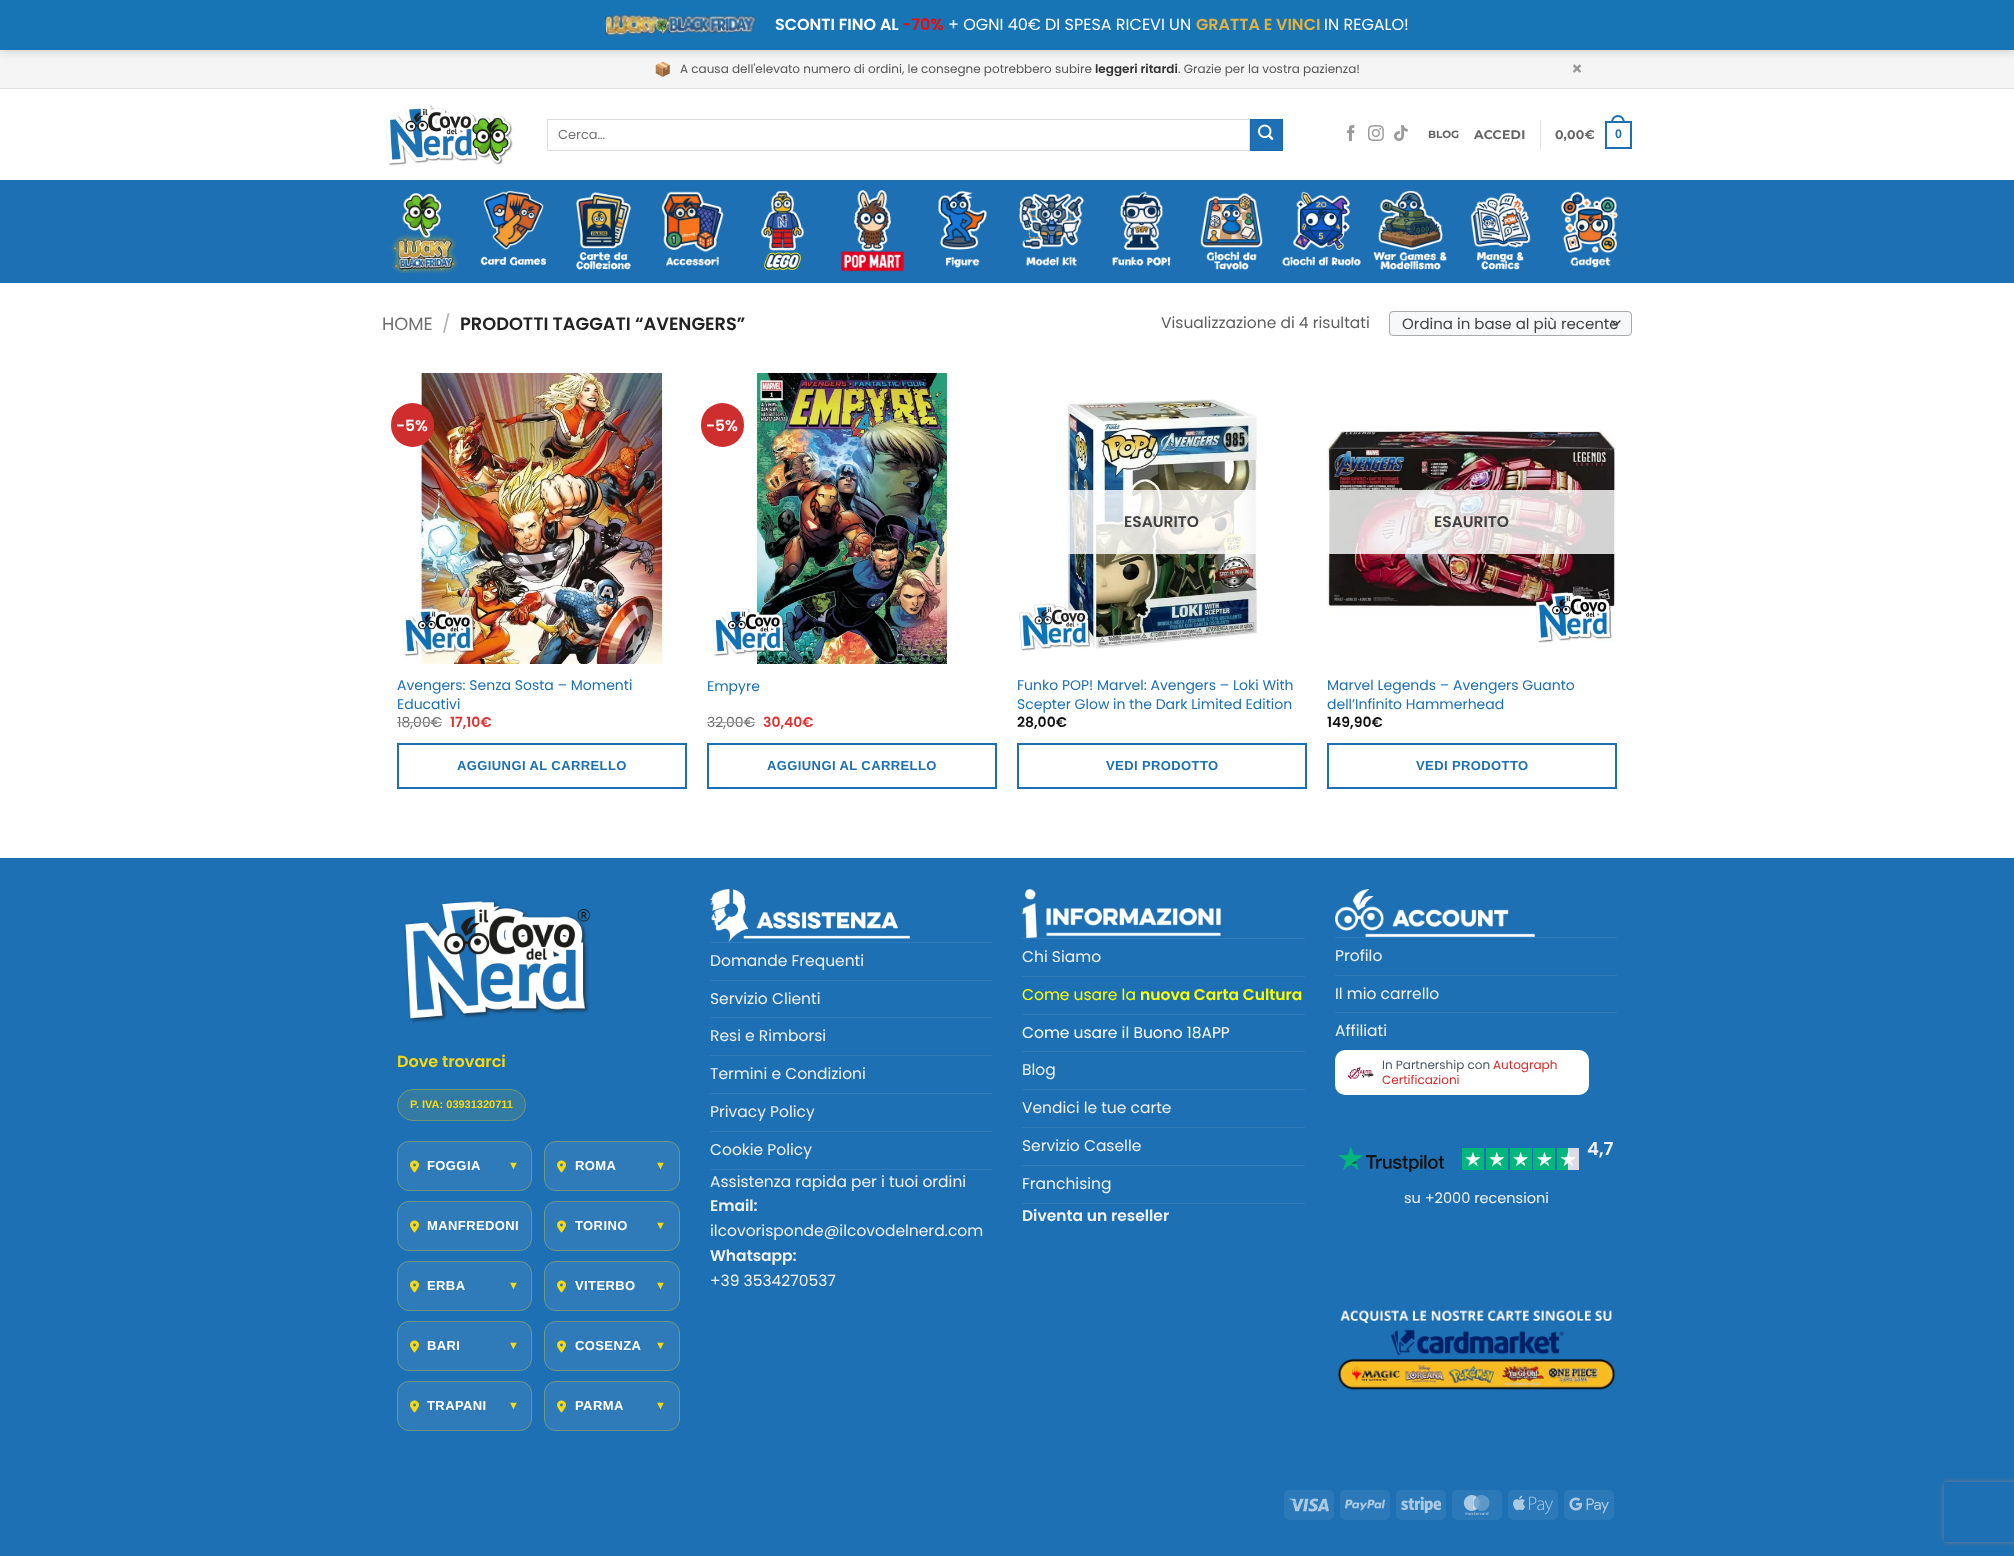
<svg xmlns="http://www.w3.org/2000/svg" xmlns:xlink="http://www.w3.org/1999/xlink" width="2014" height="1556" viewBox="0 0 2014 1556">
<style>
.cls-1{font:600 16px Poppins;fill:#ffffff}
.cls-2{font:600 16px Poppins;fill:#ff0000}
.cls-3{font:16px Poppins;fill:#ffffff}
.cls-4{font:600 16px Poppins;fill:#e3b13f}
.cls-5{font:14px Noto Color Emoji;fill:#333333}
.cls-6{font:12px Poppins;fill:#555555}
.cls-7{font:600 12px Poppins;fill:#333333}
.cls-8{font:600 18px Poppins;letter-spacing:1px;fill:#999999}
.cls-9{font:13px Poppins;fill:#757575}
.cls-10{font:bold 10.5px Montserrat;fill:#656565}
.cls-11{font:bold 12.5px Montserrat;letter-spacing:0.25px;fill:#656565}
.cls-12{font:bold 12.5px Liberation Sans;letter-spacing:0.25px;fill:#1d70b3}
.cls-13{font:17.8px Poppins;fill:#6e6e6e}
.cls-14{font:17.8px Poppins;fill:#b2b2b2}
.cls-15{font:600 17.8px Poppins;fill:#222222}
.cls-16{font:15.5px Poppins;fill:#5e5e5e}
.cls-17{font:15px Poppins;fill:#414141}
.cls-18{font:600 15.5px Poppins;fill:#ffffff}
.cls-19{font:14px Poppins;fill:#1d70b3}
.cls-20{font:14px Poppins;fill:#6e6e6e}
.cls-21{font:600 14px Poppins;fill:#dd3333}
.cls-22{font:bold 13px Liberation Sans;letter-spacing:0.4px;fill:#1d70b3}
.cls-23{font:600 15.5px Poppins;fill:#414141}
.cls-24{font:600 14px Poppins;fill:#111111}
.cls-25{font:600 16px Poppins;fill:#fad90e}
.cls-26{font:bold 11px Liberation Sans;fill:#fad90e}
.cls-27{font:bold 13px Liberation Sans;letter-spacing:0.4px;fill:#ffffff}
.cls-28{font:bold 11px Liberation Sans;letter-spacing:0.4px;fill:#fad90e}
.cls-29{font:15.5px Poppins;fill:#f1f1f1}
.cls-30{font:600 15.5px Poppins;fill:#f1f1f1}
.cls-31{font:15.5px Poppins;fill:#ffff00}
.cls-32{font:600 15.5px Poppins;fill:#ffff00}
.cls-33{font:15.5px Poppins;fill:#ffffff}
.cls-34{font:12px Poppins;fill:#4b5563}
.cls-35{font:12px Poppins;fill:#dc2626}
.cls-36{font:600 18px Poppins;fill:#f1f1f1}
.cls-37{font:14.5px Poppins;fill:#f1f1f1}
</style>
<defs>
<clipPath id="clip1"><path d="M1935 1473H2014V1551H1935ZM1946 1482H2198C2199 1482 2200 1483 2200 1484V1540C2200 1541 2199 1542 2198 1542H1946C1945 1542 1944 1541 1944 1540V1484C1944 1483 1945 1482 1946 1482Z" clip-rule="evenodd"/></clipPath>
</defs>
<rect width="100%" height="100%" fill="#1d70b3"/>
<rect fill="#f5f5f5" x="0" y="50" width="2014" height="38"/>
<rect fill="#000000" fill-opacity="0.15" filter="blur(4px)" x="0" y="2" width="2014" height="50"/>
<rect fill="#1875b5" x="0" y="0" width="2014" height="50"/>
<image xlink:href="image0.png" x="604" y="14" width="151" height="22"/>
<rect fill="#e0e0e0" x="0" y="88" width="2014" height="1"/>
<rect fill="#ffffff" x="0" y="89" width="2014" height="769"/>
<image xlink:href="image1.png" x="386" y="104" width="127" height="62"/>
<rect fill="none" stroke="#dddddd" x="547.5" y="119.5" width="702" height="31"/>
<rect fill="#1d70b3" stroke="#1c6aaa" x="1250.5" y="119.5" width="32" height="31"/>
<image xlink:href="image2.png" x="1258" y="124" width="16" height="16"/>
<image xlink:href="image3.png" x="1346" y="125" width="9" height="16"/>
<image xlink:href="image4.png" x="1368" y="125" width="16" height="16"/>
<image xlink:href="image5.png" x="1394" y="125" width="14" height="16"/>
<rect fill="#e6e6e6" x="1540" y="120" width="1" height="30"/>
<rect fill="none" stroke="#1d70b3" stroke-width="2" x="1606" y="122" width="25" height="26"/>
<path fill="#1d70b3" fill-rule="evenodd" d="M1618 115C1622.5 115 1625 119 1625 123H1611C1611 119 1613.5 115 1618 115ZM1618 117C1621.5 117 1623 120 1623 123H1613C1613 120 1614.5 117 1618 117Z"/>
<rect fill="#1d70b3" x="0" y="180" width="2014" height="103"/>
<rect fill="#246eaa" x="397" y="180" width="1220" height="1"/>
<image xlink:href="image6.png" x="390" y="193" width="69" height="80"/>
<image xlink:href="image7.png" x="480" y="190" width="67" height="76"/>
<image xlink:href="image8.png" x="576" y="192" width="55" height="78"/>
<image xlink:href="image9.png" x="661" y="191" width="63" height="75"/>
<image xlink:href="image10.png" x="761" y="190" width="43" height="81"/>
<image xlink:href="image11.png" x="841" y="190" width="63" height="82"/>
<image xlink:href="image12.png" x="938" y="190" width="49" height="78"/>
<image xlink:href="image13.png" x="1019" y="193" width="65" height="73"/>
<image xlink:href="image14.png" x="1112" y="191" width="59" height="75"/>
<image xlink:href="image15.png" x="1200" y="193" width="63" height="77"/>
<image xlink:href="image16.png" x="1282" y="191" width="79" height="76"/>
<image xlink:href="image17.png" x="1373" y="190" width="74" height="80"/>
<image xlink:href="image18.png" x="1470" y="192" width="61" height="78"/>
<image xlink:href="image19.png" x="1560" y="191" width="58" height="77"/>
<rect fill="#f7f8f9" x="1389" y="311" width="243" height="25" rx="4"/>
<path fill="none" stroke="#333333" stroke-width="1.3" stroke-linecap="round" stroke-linejoin="round" d="M1612 321L1616 325L1620 321"/>
<rect fill="none" stroke="#aaaaaa" x="1389.5" y="311.5" width="242" height="24" rx="3.5"/>
<image xlink:href="image20.png" x="402" y="373" width="264" height="291"/>
<rect fill="#cf2e2e" x="391" y="403" width="43" height="44" rx="21.5"/>
<rect fill="none" stroke="#1d70b3" stroke-width="2" x="398" y="744" width="288" height="44"/>
<image xlink:href="image21.png" x="712" y="373" width="236" height="291"/>
<rect fill="#cf2e2e" x="701" y="403" width="43" height="44" rx="21.5"/>
<rect fill="none" stroke="#1d70b3" stroke-width="2" x="708" y="744" width="288" height="44"/>
<image xlink:href="image22.png" x="1019" y="399" width="239" height="252"/>
<rect fill="#ffffff" fill-opacity="0.81" x="1067" y="490" width="189" height="64"/>
<rect fill="none" stroke="#1d70b3" stroke-width="2" x="1018" y="744" width="288" height="44"/>
<image xlink:href="image23.png" x="1327" y="429" width="289" height="214"/>
<rect fill="#ffffff" fill-opacity="0.81" x="1327" y="490" width="289" height="64"/>
<rect fill="none" stroke="#1d70b3" stroke-width="2" x="1328" y="744" width="288" height="44"/>
<rect fill="#1c6aaa" x="0" y="858" width="2014" height="1"/>
<image xlink:href="image24.png" x="404" y="900" width="187" height="123"/>
<rect fill="#337ba2" x="397" y="1089" width="129" height="32" rx="16"/>
<rect fill="none" stroke="#fad90e" stroke-opacity="0.3" x="397.5" y="1089.5" width="128" height="31" rx="15.5"/>
<rect fill="#2f7bb9" x="397" y="1141" width="135" height="50" rx="12"/>
<rect fill="none" stroke="#fad90e" stroke-opacity="0.3" x="397.5" y="1141.5" width="134" height="49" rx="11.5"/>
<image xlink:href="image25.png" x="410" y="1160" width="9" height="13"/>
<rect fill="#2f7bb9" x="544" y="1141" width="136" height="50" rx="12"/>
<rect fill="none" stroke="#fad90e" stroke-opacity="0.3" x="544.5" y="1141.5" width="135" height="49" rx="11.5"/>
<image xlink:href="image25.png" x="557" y="1160" width="9" height="13"/>
<rect fill="#2f7bb9" x="397" y="1201" width="135" height="50" rx="12"/>
<rect fill="none" stroke="#fad90e" stroke-opacity="0.3" x="397.5" y="1201.5" width="134" height="49" rx="11.5"/>
<image xlink:href="image25.png" x="410" y="1220" width="9" height="13"/>
<rect fill="#2f7bb9" x="544" y="1201" width="136" height="50" rx="12"/>
<rect fill="none" stroke="#fad90e" stroke-opacity="0.3" x="544.5" y="1201.5" width="135" height="49" rx="11.5"/>
<image xlink:href="image25.png" x="557" y="1220" width="9" height="13"/>
<rect fill="#2f7bb9" x="397" y="1261" width="135" height="50" rx="12"/>
<rect fill="none" stroke="#fad90e" stroke-opacity="0.3" x="397.5" y="1261.5" width="134" height="49" rx="11.5"/>
<image xlink:href="image25.png" x="410" y="1280" width="9" height="13"/>
<rect fill="#2f7bb9" x="544" y="1261" width="136" height="50" rx="12"/>
<rect fill="none" stroke="#fad90e" stroke-opacity="0.3" x="544.5" y="1261.5" width="135" height="49" rx="11.5"/>
<image xlink:href="image25.png" x="557" y="1280" width="9" height="13"/>
<rect fill="#2f7bb9" x="397" y="1321" width="135" height="50" rx="12"/>
<rect fill="none" stroke="#fad90e" stroke-opacity="0.3" x="397.5" y="1321.5" width="134" height="49" rx="11.5"/>
<image xlink:href="image25.png" x="410" y="1340" width="9" height="13"/>
<rect fill="#2f7bb9" x="544" y="1321" width="136" height="50" rx="12"/>
<rect fill="none" stroke="#fad90e" stroke-opacity="0.3" x="544.5" y="1321.5" width="135" height="49" rx="11.5"/>
<image xlink:href="image25.png" x="557" y="1340" width="9" height="13"/>
<rect fill="#2f7bb9" x="397" y="1381" width="135" height="50" rx="12"/>
<rect fill="none" stroke="#fad90e" stroke-opacity="0.3" x="397.5" y="1381.5" width="134" height="49" rx="11.5"/>
<image xlink:href="image25.png" x="410" y="1400" width="9" height="13"/>
<rect fill="#2f7bb9" x="544" y="1381" width="136" height="50" rx="12"/>
<rect fill="none" stroke="#fad90e" stroke-opacity="0.3" x="544.5" y="1381.5" width="135" height="49" rx="11.5"/>
<image xlink:href="image25.png" x="557" y="1400" width="9" height="13"/>
<image xlink:href="image26.png" x="710" y="889" width="200" height="53"/>
<rect fill="#2f7bb9" x="710" y="942" width="282" height="1"/>
<rect fill="#2f7bb9" x="710" y="980" width="282" height="1"/>
<rect fill="#2f7bb9" x="710" y="1017" width="282" height="1"/>
<rect fill="#2f7bb9" x="710" y="1055" width="282" height="1"/>
<rect fill="#2f7bb9" x="710" y="1093" width="282" height="1"/>
<rect fill="#2f7bb9" x="710" y="1131" width="282" height="1"/>
<rect fill="#2f7bb9" x="710" y="1169" width="282" height="1"/>
<image xlink:href="image27.png" x="1022" y="889" width="200" height="49"/>
<rect fill="#2f7bb9" x="1022" y="938" width="283" height="1"/>
<rect fill="#2f7bb9" x="1022" y="976" width="283" height="1"/>
<rect fill="#2f7bb9" x="1022" y="1014" width="283" height="1"/>
<rect fill="#2f7bb9" x="1022" y="1051" width="283" height="1"/>
<rect fill="#2f7bb9" x="1022" y="1089" width="283" height="1"/>
<rect fill="#2f7bb9" x="1022" y="1127" width="283" height="1"/>
<rect fill="#2f7bb9" x="1022" y="1165" width="283" height="1"/>
<rect fill="#2f7bb9" x="1022" y="1203" width="283" height="1"/>
<image xlink:href="image28.png" x="1335" y="889" width="200" height="48"/>
<rect fill="#2f7bb9" x="1335" y="937" width="282" height="1"/>
<rect fill="#2f7bb9" x="1335" y="975" width="282" height="1"/>
<rect fill="#2f7bb9" x="1335" y="1012" width="282" height="1"/>
<rect fill="#ffffff" x="1335" y="1050" width="254" height="45" rx="10"/>
<image xlink:href="image29.png" x="1347" y="1067" width="27" height="12"/>
<image xlink:href="image30.png" x="1338" y="1146" width="106" height="26"/>
<image xlink:href="image31.png" x="1462" y="1148" width="117" height="22"/>
<image xlink:href="image32.png" x="1337" y="1310" width="279" height="80"/>
<rect fill="#2b79b8" x="1284" y="1490" width="50" height="30" rx="5"/>
<image xlink:href="image33.png" x="1289" y="1498" width="40" height="14"/>
<rect fill="#2b79b8" x="1340" y="1490" width="50" height="30" rx="5"/>
<image xlink:href="image34.png" x="1345" y="1499" width="40" height="12"/>
<rect fill="#2b79b8" x="1396" y="1490" width="50" height="30" rx="5"/>
<image xlink:href="image35.png" x="1401" y="1496" width="40" height="18"/>
<rect fill="#2b79b8" x="1452" y="1490" width="50" height="30" rx="5"/>
<image xlink:href="image36.png" x="1463" y="1495" width="27" height="20"/>
<rect fill="#2b79b8" x="1508" y="1490" width="50" height="30" rx="5"/>
<image xlink:href="image37.png" x="1513" y="1495" width="40" height="20"/>
<rect fill="#2b79b8" x="1564" y="1490" width="50" height="30" rx="5"/>
<image xlink:href="image38.png" x="1569" y="1497" width="40" height="17"/>
<g clip-path="url(#clip1)">
<rect fill="#808080" filter="blur(2.5px)" x="1944" y="1482" width="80" height="60" rx="2"/>
</g>
<text class="cls-1" x="775" y="30">SCONTI FINO AL</text>
<text class="cls-2" x="902" y="30">-70%</text>
<text class="cls-3" x="948" y="30">+ OGNI 40€ DI SPESA RICEVI UN</text>
<text class="cls-4" x="1196" y="30">GRATTA E VINCI</text>
<text class="cls-3" x="1324" y="30">IN REGALO!</text>
<text class="cls-5" x="654" y="74">📦</text>
<text class="cls-6" x="680" y="73">A causa dell'elevato numero di ordini, le consegne potrebbero subire</text>
<text class="cls-7" x="1095" y="73">leggeri ritardi</text>
<text class="cls-6" x="1178" y="73">. Grazie per la vostra pazienza!</text>
<text class="cls-8" x="1571" y="75">×</text>
<text class="cls-9" x="558" y="139">Cerca…</text>
<text class="cls-10" x="1428" y="138">BLOG</text>
<text class="cls-11" x="1474" y="139">ACCEDI</text>
<text class="cls-11" x="1555" y="139">0,00€</text>
<text class="cls-12" x="1615" y="138">0</text>
<text class="cls-13" x="382" y="330">HOME</text>
<text class="cls-14" x="442" y="330">/</text>
<text class="cls-15" x="460" y="330">PRODOTTI TAGGATI “AVENGERS”</text>
<text class="cls-16" x="1161" y="328">Visualizzazione di 4 risultati</text>
<text class="cls-17" x="1402" y="329">Ordina in base al più recente</text>
<text class="cls-18" x="396" y="431">-5%</text>
<text class="cls-19"><tspan x="397" y="690">Avengers: Senza Sosta – Momenti</tspan><tspan x="397" y="709">Educativi</tspan></text>
<text class="cls-20" x="397" y="727">18,00€</text>
<rect fill="#9e9e9e" x="397" y="722" width="45" height="1"/>
<text class="cls-21" x="450" y="727">17,10€</text>
<text class="cls-22" x="457" y="770">AGGIUNGI AL CARRELLO</text>
<text class="cls-18" x="706" y="431">-5%</text>
<text class="cls-19" x="707" y="691">Empyre</text>
<text class="cls-20" x="707" y="727">32,00€</text>
<rect fill="#9e9e9e" x="707" y="722" width="48" height="1"/>
<text class="cls-21" x="763" y="727">30,40€</text>
<text class="cls-22" x="767" y="770">AGGIUNGI AL CARRELLO</text>
<text class="cls-23" x="1124" y="527">ESAURITO</text>
<text class="cls-19"><tspan x="1017" y="690">Funko POP! Marvel: Avengers – Loki With</tspan><tspan x="1017" y="709">Scepter Glow in the Dark Limited Edition</tspan></text>
<text class="cls-24" x="1017" y="727">28,00€</text>
<text class="cls-22" x="1106" y="770">VEDI PRODOTTO</text>
<text class="cls-23" x="1434" y="527">ESAURITO</text>
<text class="cls-19"><tspan x="1327" y="690">Marvel Legends – Avengers Guanto</tspan><tspan x="1327" y="709">dell’Infinito Hammerhead</tspan></text>
<text class="cls-24" x="1327" y="727">149,90€</text>
<text class="cls-22" x="1416" y="770">VEDI PRODOTTO</text>
<text class="cls-25" x="397" y="1067">Dove trovarci</text>
<text class="cls-26" x="410" y="1108">P. IVA: 03931320711</text>
<text class="cls-27" x="427" y="1170">FOGGIA</text>
<text class="cls-28" x="508" y="1169">▼</text>
<text class="cls-27" x="575" y="1170">ROMA</text>
<text class="cls-28" x="655" y="1169">▼</text>
<text class="cls-27" x="427" y="1230">MANFREDONI</text>
<text class="cls-27" x="575" y="1230">TORINO</text>
<text class="cls-28" x="655" y="1229">▼</text>
<text class="cls-27" x="427" y="1290">ERBA</text>
<text class="cls-28" x="508" y="1289">▼</text>
<text class="cls-27" x="575" y="1290">VITERBO</text>
<text class="cls-28" x="655" y="1289">▼</text>
<text class="cls-27" x="427" y="1350">BARI</text>
<text class="cls-28" x="508" y="1349">▼</text>
<text class="cls-27" x="575" y="1350">COSENZA</text>
<text class="cls-28" x="655" y="1349">▼</text>
<text class="cls-27" x="427" y="1410">TRAPANI</text>
<text class="cls-28" x="508" y="1409">▼</text>
<text class="cls-27" x="575" y="1410">PARMA</text>
<text class="cls-28" x="655" y="1409">▼</text>
<text class="cls-29" x="710" y="966">Domande Frequenti</text>
<text class="cls-29" x="710" y="1004">Servizio Clienti</text>
<text class="cls-29" x="710" y="1041">Resi e Rimborsi</text>
<text class="cls-29" x="710" y="1079">Termini e Condizioni</text>
<text class="cls-29" x="710" y="1117">Privacy Policy</text>
<text class="cls-29" x="710" y="1155">Cookie Policy</text>
<text class="cls-29" x="710" y="1187">Assistenza rapida per i tuoi ordini</text>
<text class="cls-30" x="710" y="1211">Email:</text>
<text class="cls-29" x="710" y="1236">ilcovorisponde@ilcovodelnerd.com</text>
<text class="cls-30" x="710" y="1261">Whatsapp:</text>
<text class="cls-29" x="710" y="1286">+39 3534270537</text>
<text class="cls-29" x="1022" y="962">Chi Siamo</text>
<text class="cls-31" x="1022" y="1000">Come usare la</text>
<text class="cls-32" x="1140" y="1000">nuova Carta Cultura</text>
<text class="cls-33" x="1022" y="1038">Come usare il Buono 18APP</text>
<text class="cls-29" x="1022" y="1075">Blog</text>
<text class="cls-29" x="1022" y="1113">Vendici le tue carte</text>
<text class="cls-29" x="1022" y="1151">Servizio Caselle</text>
<text class="cls-29" x="1022" y="1189">Franchising</text>
<text class="cls-30" x="1022" y="1221">Diventa un reseller</text>
<text class="cls-29" x="1335" y="961">Profilo</text>
<text class="cls-29" x="1335" y="999">Il mio carrello</text>
<text class="cls-29" x="1335" y="1036">Affiliati</text>
<text class="cls-34" x="1382" y="1069">In Partnership con</text>
<text class="cls-35" x="1493" y="1069">Autograph</text>
<text class="cls-35" x="1382" y="1084">Certificazioni</text>
<text class="cls-36" x="1587" y="1155">4,7</text>
<text class="cls-37" x="1404" y="1203">su +2000 recensioni</text>
</svg>
